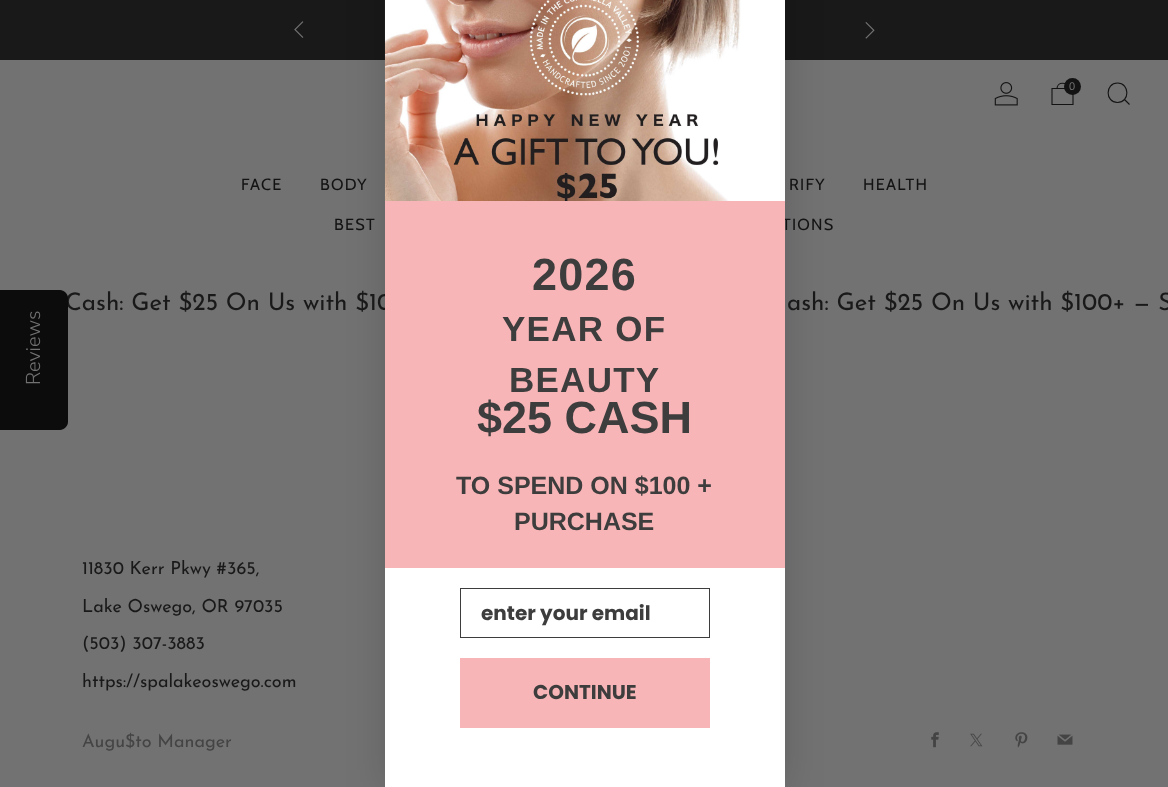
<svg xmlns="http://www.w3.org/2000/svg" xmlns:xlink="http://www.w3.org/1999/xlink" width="1168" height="787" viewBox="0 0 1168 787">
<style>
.cls-1{font:11px Liberation Sans;fill:#727272}
.cls-2{font:16.25px Cabin;letter-spacing:1.25px;fill:#131313}
.cls-3{font:24.25px Josefin Sans;fill:#191919}
.cls-4{font:18px Josefin Sans;fill:#191919}
.cls-5{font:18px Josefin Sans;fill:#444444}
.cls-6{font:300 20px Nunito Sans;fill:#727272}
.cls-7{font:bold 45px Liberation Sans;letter-spacing:1.25px;fill:#3e3d3d}
.cls-8{font:bold 35px Liberation Sans;letter-spacing:1.25px;fill:#3e3d3d}
.cls-9{font:bold 45px Liberation Sans;fill:#3e3d3d}
.cls-10{font:bold 25px Liberation Sans;fill:#3e3d3d}
.cls-11{font:bold 20px Poppins;fill:#3e3d3d}
</style>
<rect width="100%" height="100%" fill="#727272"/>
<rect fill="#191919" x="0" y="0" width="1168" height="60"/>
<image xlink:href="image0.png" x="294" y="21" width="10" height="17"/>
<image xlink:href="image1.png" x="865" y="22" width="10" height="17"/>
<image xlink:href="image2.png" x="994" y="82" width="24" height="24"/>
<path fill="none" stroke="#131313" stroke-width="1.1" d="M1052 88.5H1073V104.5H1052ZM1068 88.5C1068 81.5 1057 81.5 1057 88.5"/>
<circle fill="#131313" cx="1072.5" cy="86.5" r="8.5"/>
<path fill="none" stroke="#131313" stroke-width="1.1" d="M1117.5 102.5C1130 102.5 1130 83 1117.5 83C1105 83 1105 102.5 1117.5 102.5ZM1124.5 99.5L1129.5 104.5"/>
<image xlink:href="image3.png" x="931" y="732" width="8" height="16"/>
<image xlink:href="image4.png" x="970" y="733" width="13" height="14"/>
<image xlink:href="image5.png" x="1015" y="732" width="13" height="16"/>
<image xlink:href="image6.png" x="1057" y="734" width="16" height="11"/>
<rect fill="#000000" fill-opacity="0.15" filter="blur(19px)" x="385" y="-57" width="400" height="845"/>
<text class="cls-1" x="1069" y="90">0</text>
<text class="cls-2" x="241" y="190">FACE</text>
<text class="cls-2" x="320" y="190">BODY</text>
<text class="cls-2" x="789" y="190">RIFY</text>
<text class="cls-2" x="863" y="190">HEALTH</text>
<text class="cls-2" x="334" y="230">BEST</text>
<text class="cls-2" x="782" y="230">TIONS</text>
<text class="cls-3" x="65" y="310">Cash: Get $25 On Us with $10</text>
<text class="cls-3" x="787" y="310">ash: Get $25 On Us with $100+ — S</text>
<text class="cls-4" x="82" y="574">11830 Kerr Pkwy #365,</text>
<text class="cls-4" x="82" y="612">Lake Oswego, OR 97035</text>
<text class="cls-4" x="82" y="649">(503) 307-3883</text>
<text class="cls-4" x="82" y="687">https://spalakeoswego.com</text>
<text class="cls-5" x="82" y="747">Augu$to Manager</text>
<path fill="#0c0c0c" d="M0 430V290H60C64 290 68 294 68 298V422C68 426 64 430 60 430Z"/>
<text class="cls-6" x="40" y="385" transform="rotate(-90 40 385)">Reviews</text>
<rect fill="#ffffff" x="385" y="0" width="400" height="787"/>
<image xlink:href="image7.png" x="384" y="0" width="357" height="201"/>
<rect fill="#f8b5b7" x="385" y="201" width="400" height="367"/>
<text class="cls-7" x="532" y="290">2026</text>
<text class="cls-8" x="502" y="341">YEAR OF</text>
<text class="cls-8" x="509" y="392">BEAUTY</text>
<text class="cls-9" x="477" y="433">$25 CASH</text>
<text class="cls-10" x="456" y="494">TO SPEND ON $100 +</text>
<text class="cls-10" x="514" y="530">PURCHASE</text>
<rect fill="none" stroke="#3e3d3d" x="460.5" y="588.5" width="249" height="49"/>
<text class="cls-11" x="481" y="620">enter your email</text>
<rect fill="#f8b5b7" x="460" y="658" width="250" height="70"/>
<text class="cls-11" x="533" y="699">CONTINUE</text>
</svg>
